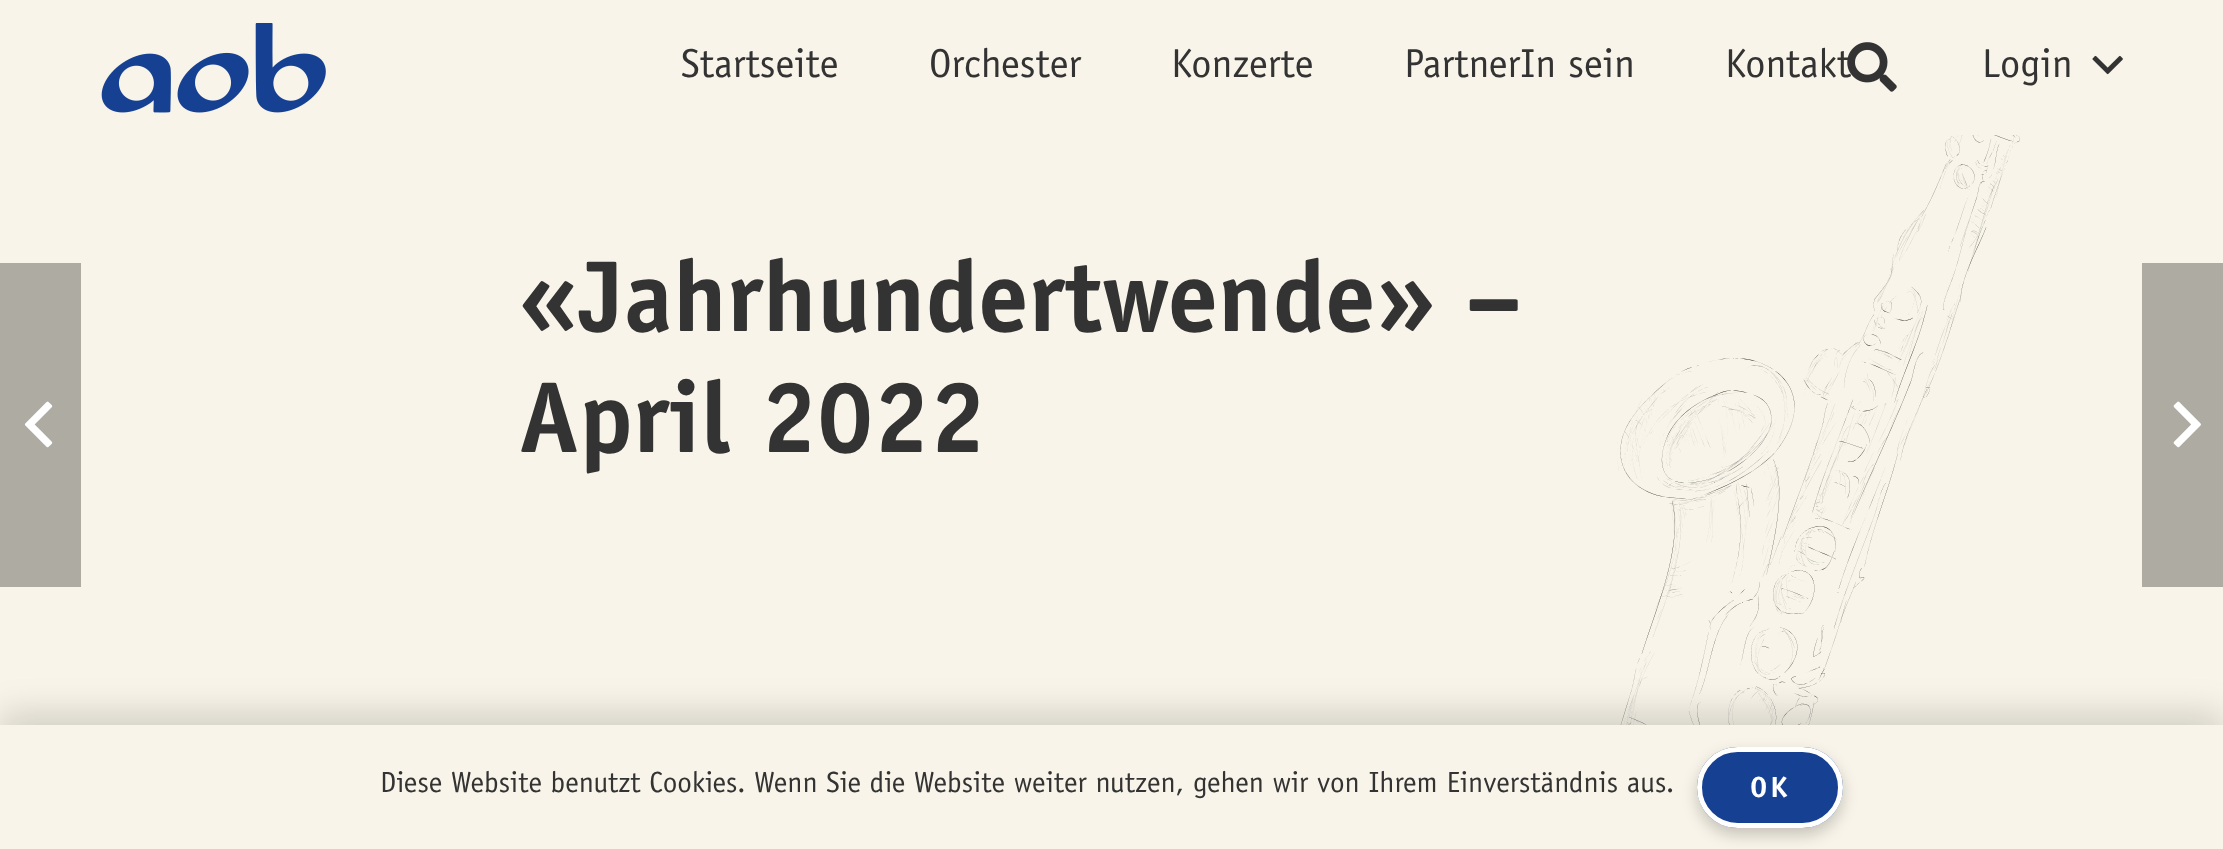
<svg xmlns="http://www.w3.org/2000/svg" xmlns:xlink="http://www.w3.org/1999/xlink" width="2223" height="849" viewBox="0 0 2223 849">
<style>
.cls-1{font:40.5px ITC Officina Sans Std;fill:#333333}
.cls-2{font:bold 101.25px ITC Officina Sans;fill:#333333}
.cls-3{font:29.25px ITC Officina Sans Std;fill:#333333}
.cls-4{font:bold 29.25px ITC Officina Sans;letter-spacing:3px;fill:#ffffff}
</style>
<rect width="100%" height="100%" fill="#f8f4e9"/>
<image xlink:href="image0.png" x="101" y="23" width="225" height="90"/>
<image xlink:href="image2.png" x="2092" y="55" width="31" height="20"/>
<rect fill="#aeaba3" x="0" y="263" width="81" height="324"/>
<image xlink:href="image3.png" x="24" y="401" width="29" height="47"/>
<rect fill="#aeaba3" x="2142" y="263" width="81" height="324"/>
<image xlink:href="image4.png" x="2173" y="401" width="28" height="47"/>
<image xlink:href="image5.png" x="1617" y="135" width="403" height="590"/>
<rect fill="#000000" fill-opacity="0.15" filter="blur(17px)" x="0" y="713" width="2223" height="126"/>
<rect fill="#f8f4e9" x="0" y="725" width="2223" height="124"/>
<rect fill="#000000" fill-opacity="0.2" filter="blur(7.5px)" x="1697" y="754" width="146" height="81" rx="40.5"/>
<rect fill="#164193" x="1697" y="747" width="146" height="81" rx="40.5"/>
<rect fill="none" stroke="#ffffff" stroke-width="5" x="1699.5" y="749.5" width="141" height="76" rx="38"/>
<text class="cls-1" x="681" y="77">Startseite</text>
<text class="cls-1" x="929" y="77">Orchester</text>
<text class="cls-1" x="1171" y="77">Konzerte</text>
<text class="cls-1" x="1404" y="77">PartnerIn sein</text>
<text class="cls-1" x="1725" y="77">Kontakt</text>
<image xlink:href="image1.png" x="1847" y="42" width="50" height="50"/>
<text class="cls-1" x="1982" y="77">Login</text>
<text class="cls-2"><tspan x="519" y="331">«Jahrhundertwende» –</tspan><tspan x="519" y="452">April 2022</tspan></text>
<text class="cls-3" x="380" y="792">Diese Website benutzt Cookies. Wenn Sie die Website weiter nutzen, gehen wir von Ihrem Einverständnis aus.</text>
<text class="cls-4" x="1750" y="797">OK</text>
</svg>
